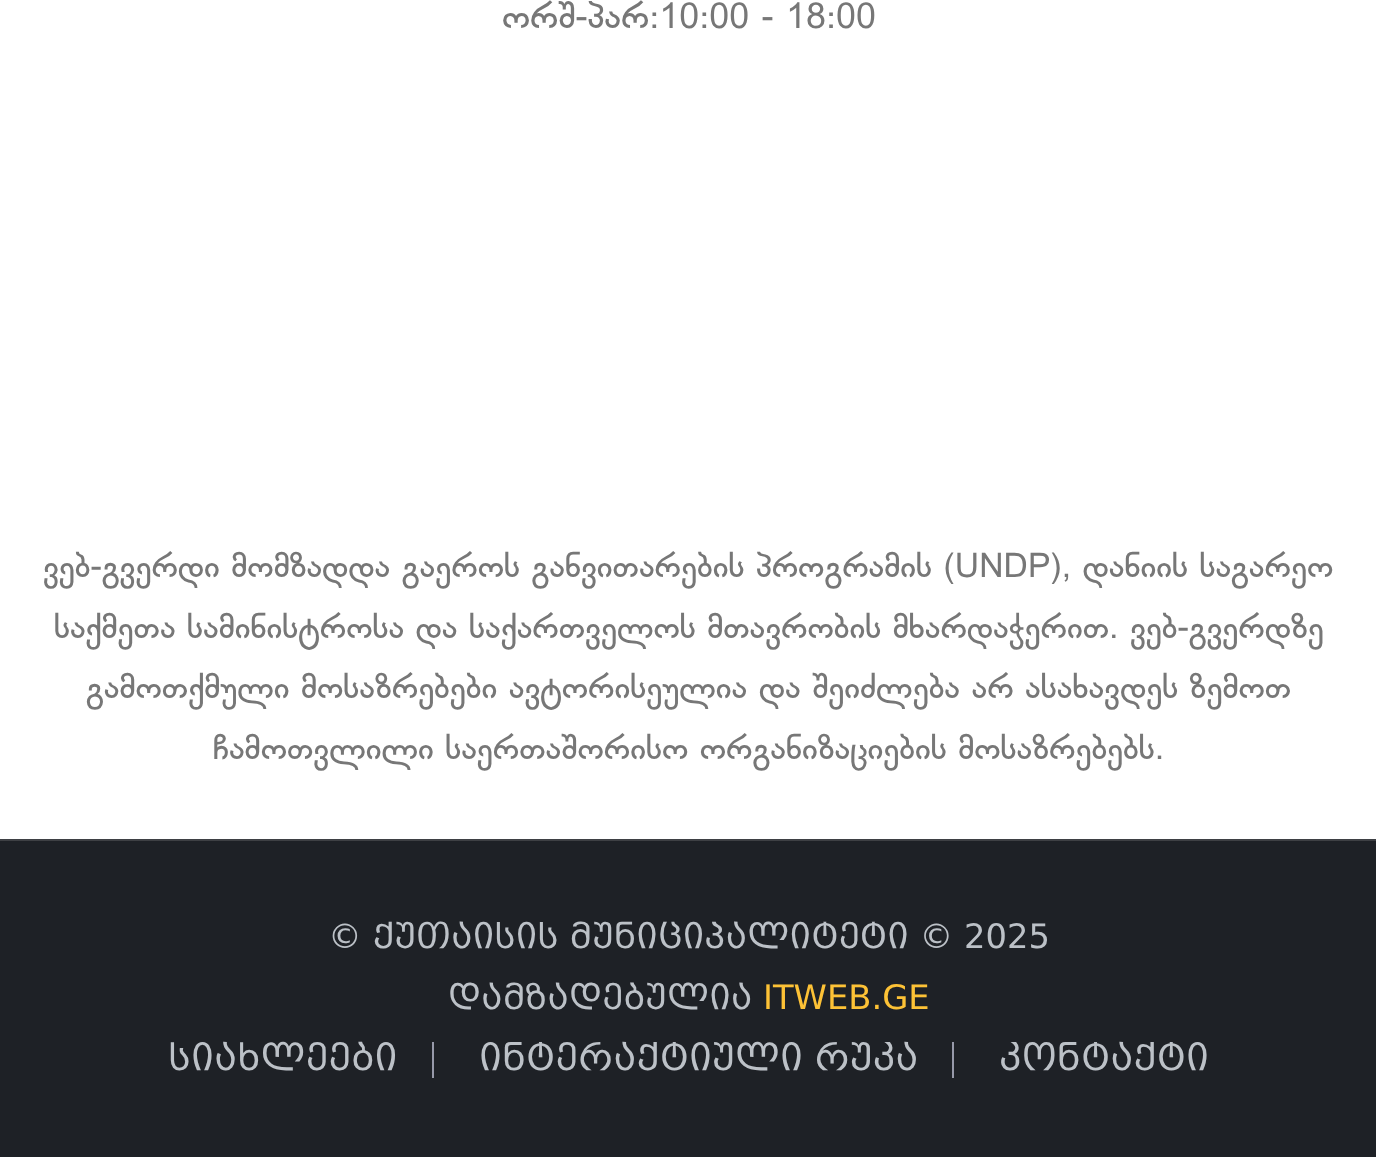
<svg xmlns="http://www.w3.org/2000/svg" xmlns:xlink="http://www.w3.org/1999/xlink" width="1376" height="1157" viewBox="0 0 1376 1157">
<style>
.cls-1{font:36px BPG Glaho;fill:#777777}
.cls-2{font:33.75px BPG Glaho;fill:#777777}
.cls-3{font:33.75px 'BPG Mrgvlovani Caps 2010';fill:#bcc1c7}
.cls-4{font:33.75px 'BPG Mrgvlovani Caps 2010';fill:#fdc236}
.cls-5{font:36px 'BPG Mrgvlovani Caps 2010';fill:#bcc1c7}
</style>
<rect width="100%" height="100%" fill="#ffffff"/>
<rect fill="#1e2126" x="0" y="841" width="1376" height="316"/>
<rect fill="#3e4044" x="0" y="839" width="1376" height="2"/>
<rect fill="#9799a9" x="432" y="1042" width="2" height="36"/>
<rect fill="#9799a9" x="952" y="1042" width="2" height="36"/>
<text class="cls-1" x="502" y="28">ორშ-პარ:10:00 - 18:00</text>
<text class="cls-2" x="43" y="577">ვებ-გვერდი მომზადდა გაეროს განვითარების პროგრამის (UNDP), დანიის საგარეო</text>
<text class="cls-2" x="54" y="638">საქმეთა სამინისტროსა და საქართველოს მთავრობის მხარდაჭერით. ვებ-გვერდზე</text>
<text class="cls-2" x="86" y="698">გამოთქმული მოსაზრებები ავტორისეულია და შეიძლება არ ასახავდეს ზემოთ</text>
<text class="cls-2" x="213" y="759">ჩამოთვლილი საერთაშორისო ორგანიზაციების მოსაზრებებს.</text>
<text class="cls-3" x="328" y="948">© ქუთაისის მუნიციპალიტეტი © 2025</text>
<text class="cls-3" x="448" y="1009">დამზადებულია</text>
<text class="cls-4" x="763" y="1009">ITWEB.GE</text>
<text class="cls-5" x="168" y="1070">სიახლეები</text>
<text class="cls-5" x="479" y="1070">ინტერაქტიული რუკა</text>
<text class="cls-5" x="999" y="1070">კონტაქტი</text>
</svg>
